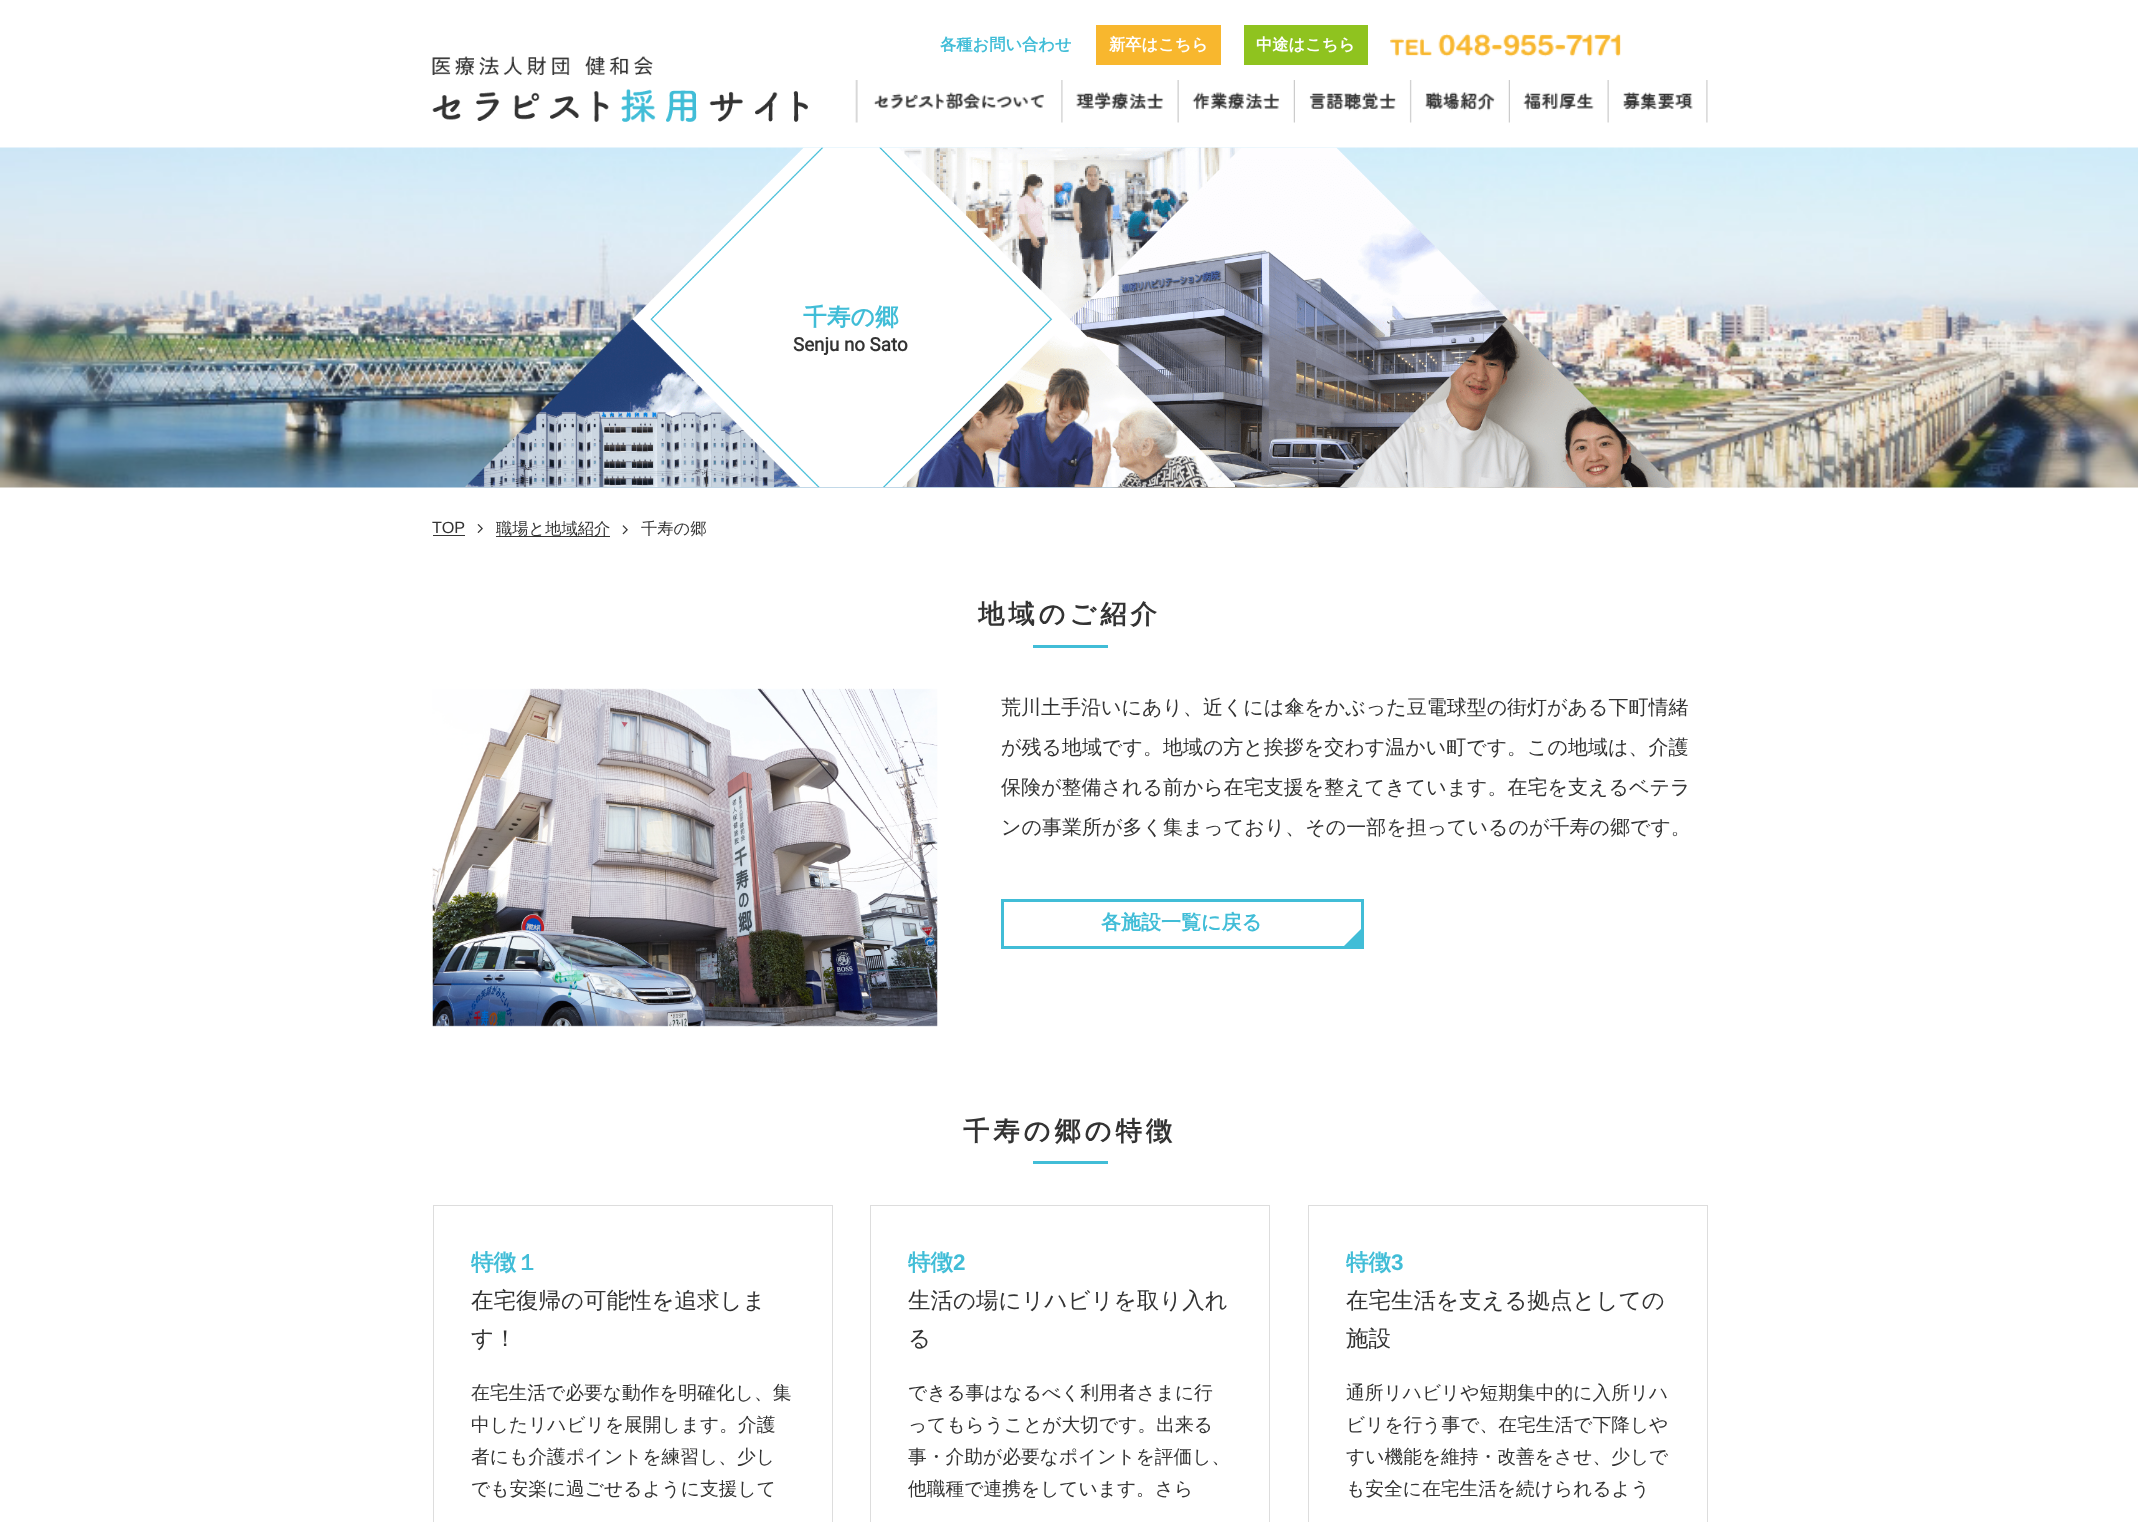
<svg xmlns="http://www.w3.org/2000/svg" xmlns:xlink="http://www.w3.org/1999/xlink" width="2138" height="1522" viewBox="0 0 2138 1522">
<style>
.cls-1{font:bold 16.25px WenQuanYi Zen Hei;fill:#41bdd7}
.cls-2{font:bold 16.25px WenQuanYi Zen Hei;fill:#ffffff}
.cls-3{font:bold 23.75px WenQuanYi Zen Hei;fill:#41bdd7}
.cls-4{font:bold 18.75px Roboto;fill:#333333}
.cls-5{font:16.25px Liberation Sans;fill:#333333}
.cls-6{font:500 16.25px WenQuanYi Zen Hei;fill:#333333}
.cls-7{font:bold 26.25px WenQuanYi Zen Hei;letter-spacing:4px;fill:#333333}
.cls-8{font:500 20px WenQuanYi Zen Hei;fill:#333333}
.cls-9{font:bold 20px WenQuanYi Zen Hei;fill:#41bdd7}
.cls-10{font:bold 22.5px WenQuanYi Zen Hei;fill:#41bdd7}
.cls-11{font:500 22.5px WenQuanYi Zen Hei;fill:#333333}
.cls-12{font:500 18.75px WenQuanYi Zen Hei;fill:#333333}
.cls-13{font:bold 22.5px Liberation Sans;fill:#41bdd7}
</style>
<rect width="100%" height="100%" fill="#ffffff"/>
<rect fill="#f8b72e" x="1096" y="25" width="125" height="40"/>
<rect fill="#8fc31f" x="1244" y="25" width="124" height="40"/>
<image xlink:href="image0.png" x="1390" y="33" width="231" height="24"/>
<image xlink:href="image1.png" x="855" y="80" width="208" height="43"/>
<image xlink:href="image2.png" x="1076" y="80" width="103" height="43"/>
<image xlink:href="image3.png" x="1192" y="80" width="103" height="43"/>
<image xlink:href="image4.png" x="1309" y="80" width="103" height="43"/>
<image xlink:href="image5.png" x="1425" y="80" width="85" height="43"/>
<image xlink:href="image6.png" x="1523" y="80" width="86" height="43"/>
<image xlink:href="image7.png" x="1623" y="80" width="85" height="43"/>
<image xlink:href="image8.png" x="432" y="56" width="376" height="67"/>
<image xlink:href="image9.png" x="0" y="147" width="2138" height="341"/>
<image xlink:href="image10.png" x="465" y="147" width="1210" height="341"/>
<rect fill="#333333" x="433" y="535" width="32" height="1"/>
<image xlink:href="image11.png" x="477" y="524" width="6" height="9"/>
<rect fill="#333333" x="496" y="536" width="114" height="1"/>
<image xlink:href="image12.png" x="622" y="525" width="6" height="10"/>
<rect fill="#41bdd7" x="1033" y="645" width="75" height="3"/>
<image xlink:href="image13.png" x="432" y="688" width="506" height="339"/>
<rect fill="none" stroke="#41bdd7" stroke-width="3" x="1002.5" y="900.5" width="360" height="47"/>
<path fill="#41bdd7" d="M1361 946H1344L1361 929Z"/>
<rect fill="#41bdd7" x="1033" y="1161" width="75" height="3"/>
<rect fill="none" stroke="#dddddd" x="433.5" y="1205.5" width="399" height="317"/>
<rect fill="none" stroke="#dddddd" x="870.5" y="1205.5" width="399" height="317"/>
<rect fill="none" stroke="#dddddd" x="1308.5" y="1205.5" width="399" height="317"/>
<text class="cls-1" x="940" y="50">各種お問い合わせ</text>
<text class="cls-2" x="1109" y="50">新卒はこちら</text>
<text class="cls-2" x="1256" y="50">中途はこちら</text>
<text class="cls-3" x="803" y="325">千寿の郷</text>
<text class="cls-4" x="793" y="351">Senju no Sato</text>
<text class="cls-5" x="432" y="533">TOP</text>
<text class="cls-6" x="496" y="534">職場と地域紹介</text>
<text class="cls-6" x="641" y="534">千寿の郷</text>
<text class="cls-7" x="978" y="623">地域のご紹介</text>
<text class="cls-8" x="1001" y="714">荒川土手沿いにあり、近くには傘をかぶった豆電球型の街灯がある下町情緒</text>
<text class="cls-8" x="1001" y="754">が残る地域です。地域の方と挨拶を交わす温かい町です。この地域は、介護</text>
<text class="cls-8" x="1001" y="794">保険が整備される前から在宅支援を整えてきています。在宅を支えるベテラ</text>
<text class="cls-8" x="1001" y="834">ンの事業所が多く集まっており、その一部を担っているのが千寿の郷です。</text>
<text class="cls-9" x="1101" y="929">各施設一覧に戻る</text>
<text class="cls-7" x="963" y="1140">千寿の郷の特徴</text>
<text class="cls-10" x="471" y="1270">特徴１</text>
<text class="cls-11"><tspan x="471" y="1308">在宅復帰の可能性を追求しま</tspan><tspan x="471" y="1346">す！</tspan></text>
<text class="cls-12"><tspan x="471" y="1399">在宅生活で必要な動作を明確化し、集</tspan><tspan x="471" y="1431">中したリハビリを展開します。介護</tspan><tspan x="471" y="1463">者にも介護ポイントを練習し、少し</tspan><tspan x="471" y="1495">でも安楽に過ごせるように支援して</tspan></text>
<text class="cls-10" x="908" y="1270">特徴</text>
<text class="cls-13" x="953" y="1270">2</text>
<text class="cls-11"><tspan x="908" y="1308">生活の場にリハビリを取り入れ</tspan><tspan x="908" y="1346">る</tspan></text>
<text class="cls-12"><tspan x="908" y="1399">できる事はなるべく利用者さまに行</tspan><tspan x="908" y="1431">ってもらうことが大切です。出来る</tspan><tspan x="908" y="1463">事・介助が必要なポイントを評価し、</tspan><tspan x="908" y="1495">他職種で連携をしています。さら</tspan></text>
<text class="cls-10" x="1346" y="1270">特徴</text>
<text class="cls-13" x="1391" y="1270">3</text>
<text class="cls-11"><tspan x="1346" y="1308">在宅生活を支える拠点としての</tspan><tspan x="1346" y="1346">施設</tspan></text>
<text class="cls-12"><tspan x="1346" y="1399">通所リハビリや短期集中的に入所リハ</tspan><tspan x="1346" y="1431">ビリを行う事で、在宅生活で下降しや</tspan><tspan x="1346" y="1463">すい機能を維持・改善をさせ、少しで</tspan><tspan x="1346" y="1495">も安全に在宅生活を続けられるよう</tspan></text>
</svg>
